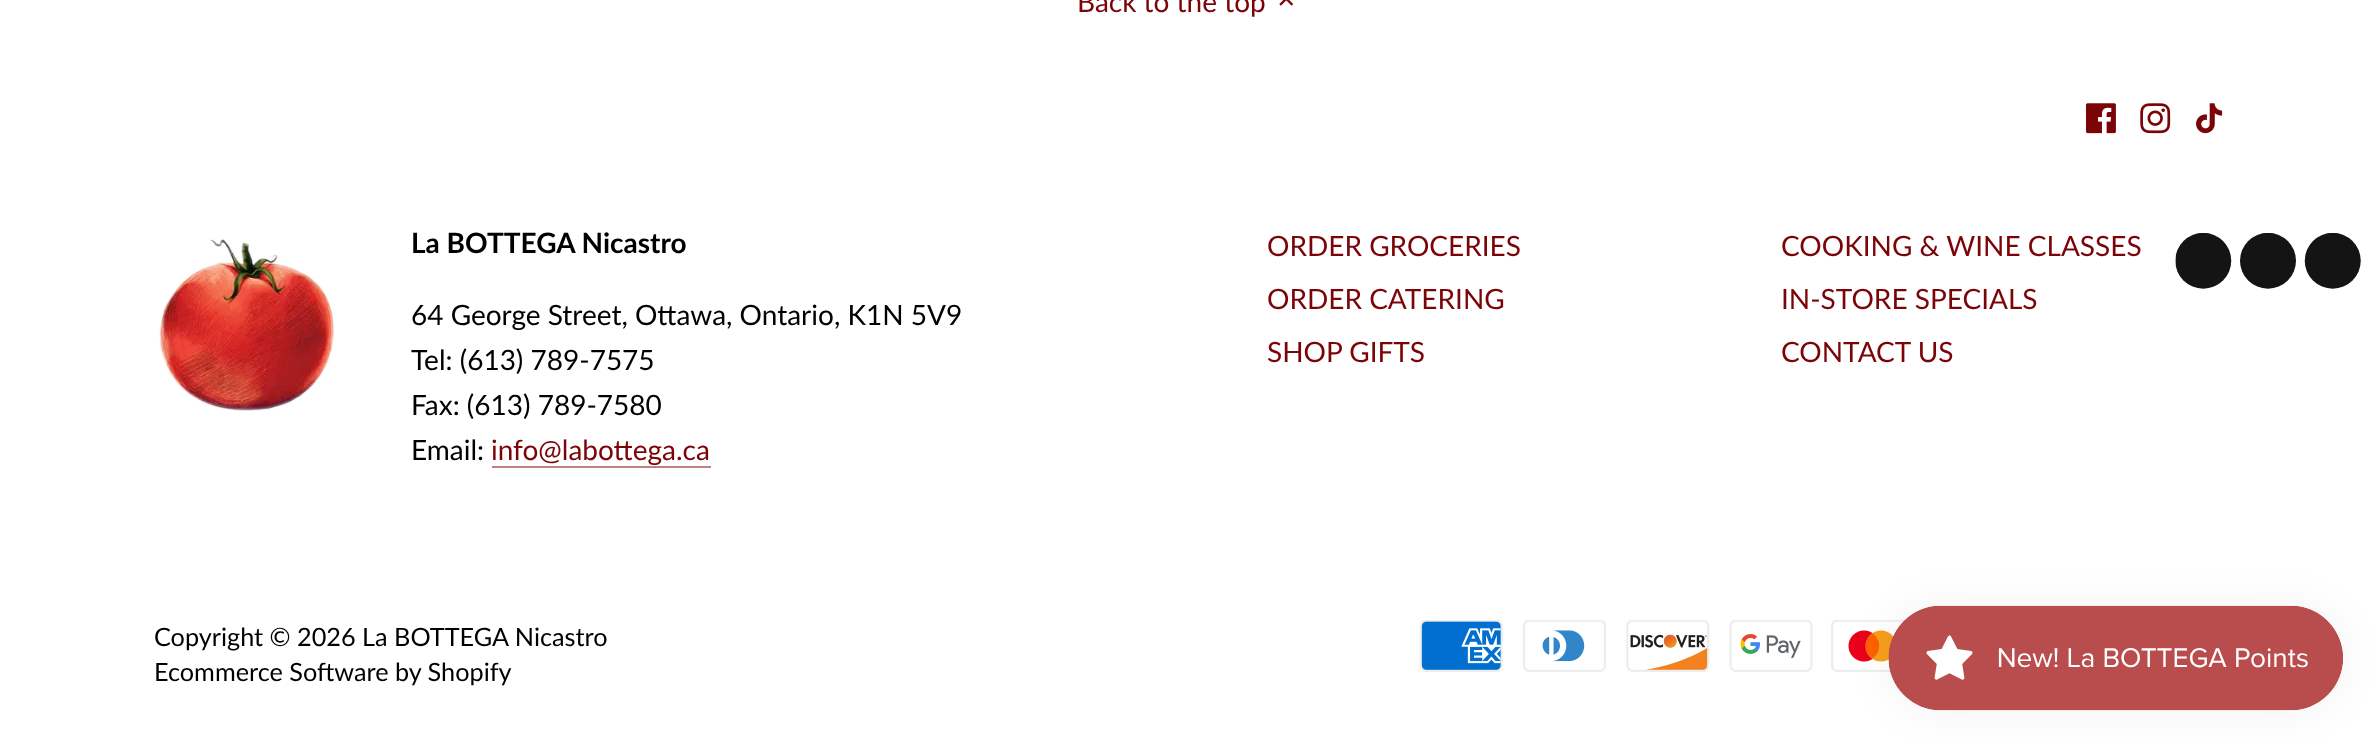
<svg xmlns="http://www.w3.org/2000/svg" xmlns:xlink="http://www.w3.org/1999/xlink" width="2377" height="744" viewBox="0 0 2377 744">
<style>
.cls-1{font:28px Lato;fill:#7b0408}
.cls-2{font:bold 28px Lato;fill:#000000}
.cls-3{font:28px Lato;fill:#000000}
.cls-4{font:25.25px Lato;fill:#000000}
</style>
<rect width="100%" height="100%" fill="#ffffff"/>
<image xlink:href="image0.png" x="1279" y="0" width="15" height="6"/>
<image xlink:href="image1.png" x="2086" y="103" width="30" height="31"/>
<image xlink:href="image2.png" x="2140" y="103" width="31" height="31"/>
<image xlink:href="image3.png" x="2196" y="103" width="27" height="31"/>
<image xlink:href="image4.png" x="159" y="239" width="176" height="172"/>
<rect fill="#bd8284" x="492" y="466" width="219" height="2"/>
<image xlink:href="image5.png" x="1419" y="620" width="84" height="52"/>
<image xlink:href="image6.png" x="1523" y="620" width="83" height="52"/>
<image xlink:href="image7.png" x="1626" y="620" width="84" height="52"/>
<image xlink:href="image8.png" x="1729" y="620" width="84" height="52"/>
<image xlink:href="image9.png" x="1831" y="620" width="74" height="52"/>
<image xlink:href="image10.png" x="2175" y="233" width="186" height="56"/>
<rect fill="#000000" fill-opacity="0.05" filter="blur(22px)" x="1888" y="606" width="455" height="105" rx="52.5"/>
<image xlink:href="image11.png" x="1888" y="605" width="455" height="106"/>
<text class="cls-1" x="1077" y="12">Back to the top</text>
<text class="cls-2" x="411" y="253">La BOTTEGA Nicastro</text>
<text class="cls-3"><tspan x="411" y="325">64 George Street, Ottawa, Ontario, K1N 5V9</tspan><tspan x="411" y="370">Tel: (613) 789-7575</tspan><tspan x="411" y="415">Fax: (613) 789-7580</tspan><tspan x="411" y="460">Email:</tspan></text>
<text class="cls-1" x="491" y="460">info@labottega.ca</text>
<text class="cls-1"><tspan x="1267" y="256">ORDER GROCERIES</tspan><tspan x="1267" y="309">ORDER CATERING</tspan><tspan x="1267" y="362">SHOP GIFTS</tspan></text>
<text class="cls-1"><tspan x="1781" y="256">COOKING &amp; WINE CLASSES</tspan><tspan x="1781" y="309">IN-STORE SPECIALS</tspan><tspan x="1781" y="362">CONTACT US</tspan></text>
<text class="cls-4"><tspan x="154" y="646">Copyright © 2026 La BOTTEGA Nicastro</tspan><tspan x="154" y="681">Ecommerce Software by Shopify</tspan></text>
</svg>
